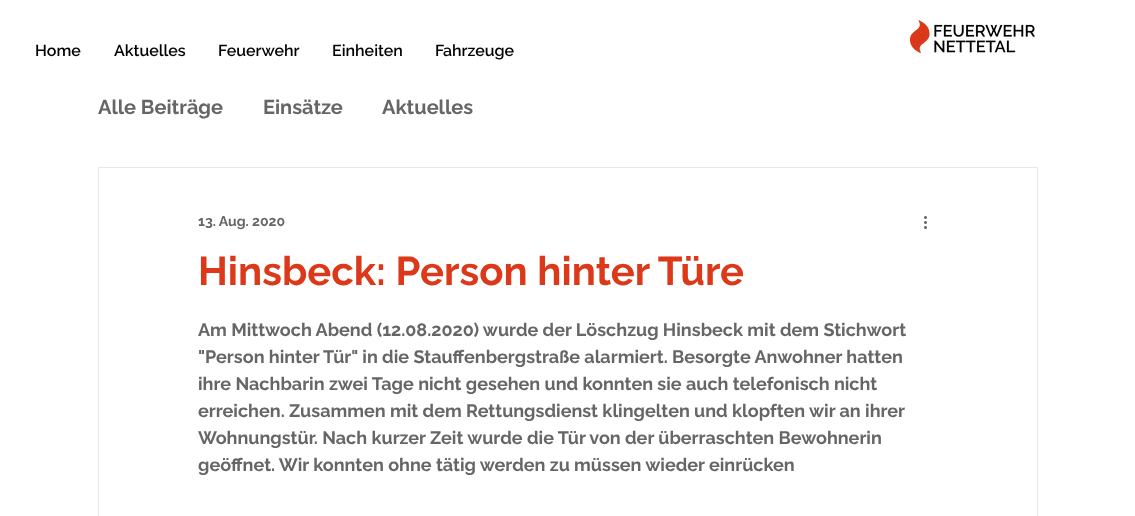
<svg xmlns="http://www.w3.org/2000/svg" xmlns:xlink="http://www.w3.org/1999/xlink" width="1135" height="516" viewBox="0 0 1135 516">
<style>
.cls-1{font:600 16px Raleway;fill:#000000}
.cls-2{font:bold 20px Raleway;fill:#666666}
.cls-3{font:bold 14px Raleway;fill:#666666}
.cls-4{font:bold 40px Raleway;fill:#db3919}
.cls-5{font:bold 18px Raleway;fill:#666666}
</style>
<rect width="100%" height="100%" fill="#ffffff"/>
<image xlink:href="image0.png" x="910" y="20" width="125" height="33"/>
<rect fill="none" stroke="#e8e8e8" x="98.5" y="167.5" width="939" height="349"/>
<image xlink:href="image1.png" x="924" y="216" width="3" height="13"/>
<text class="cls-1" x="35" y="56">Home</text>
<text class="cls-1" x="114" y="56">Aktuelles</text>
<text class="cls-1" x="218" y="56">Feuerwehr</text>
<text class="cls-1" x="332" y="56">Einheiten</text>
<text class="cls-1" x="435" y="56">Fahrzeuge</text>
<text class="cls-2" x="98" y="114">Alle Beiträge</text>
<text class="cls-2" x="263" y="114">Einsätze</text>
<text class="cls-2" x="382" y="114">Aktuelles</text>
<text class="cls-3" x="198" y="226">13. Aug. 2020</text>
<text class="cls-4" x="198" y="285">Hinsbeck: Person hinter Türe</text>
<text class="cls-5"><tspan x="198" y="336">Am Mittwoch Abend (12.08.2020) wurde der Löschzug Hinsbeck mit dem Stichwort</tspan><tspan x="198" y="363">"Person hinter Tür" in die Stauffenbergstraße alarmiert. Besorgte Anwohner hatten</tspan><tspan x="198" y="390">ihre Nachbarin zwei Tage nicht gesehen und konnten sie auch telefonisch nicht</tspan><tspan x="198" y="417">erreichen. Zusammen mit dem Rettungsdienst klingelten und klopften wir an ihrer</tspan><tspan x="198" y="444">Wohnungstür. Nach kurzer Zeit wurde die Tür von der überraschten Bewohnerin</tspan><tspan x="198" y="471">geöffnet. Wir konnten ohne tätig werden zu müssen wieder einrücken</tspan></text>
</svg>
